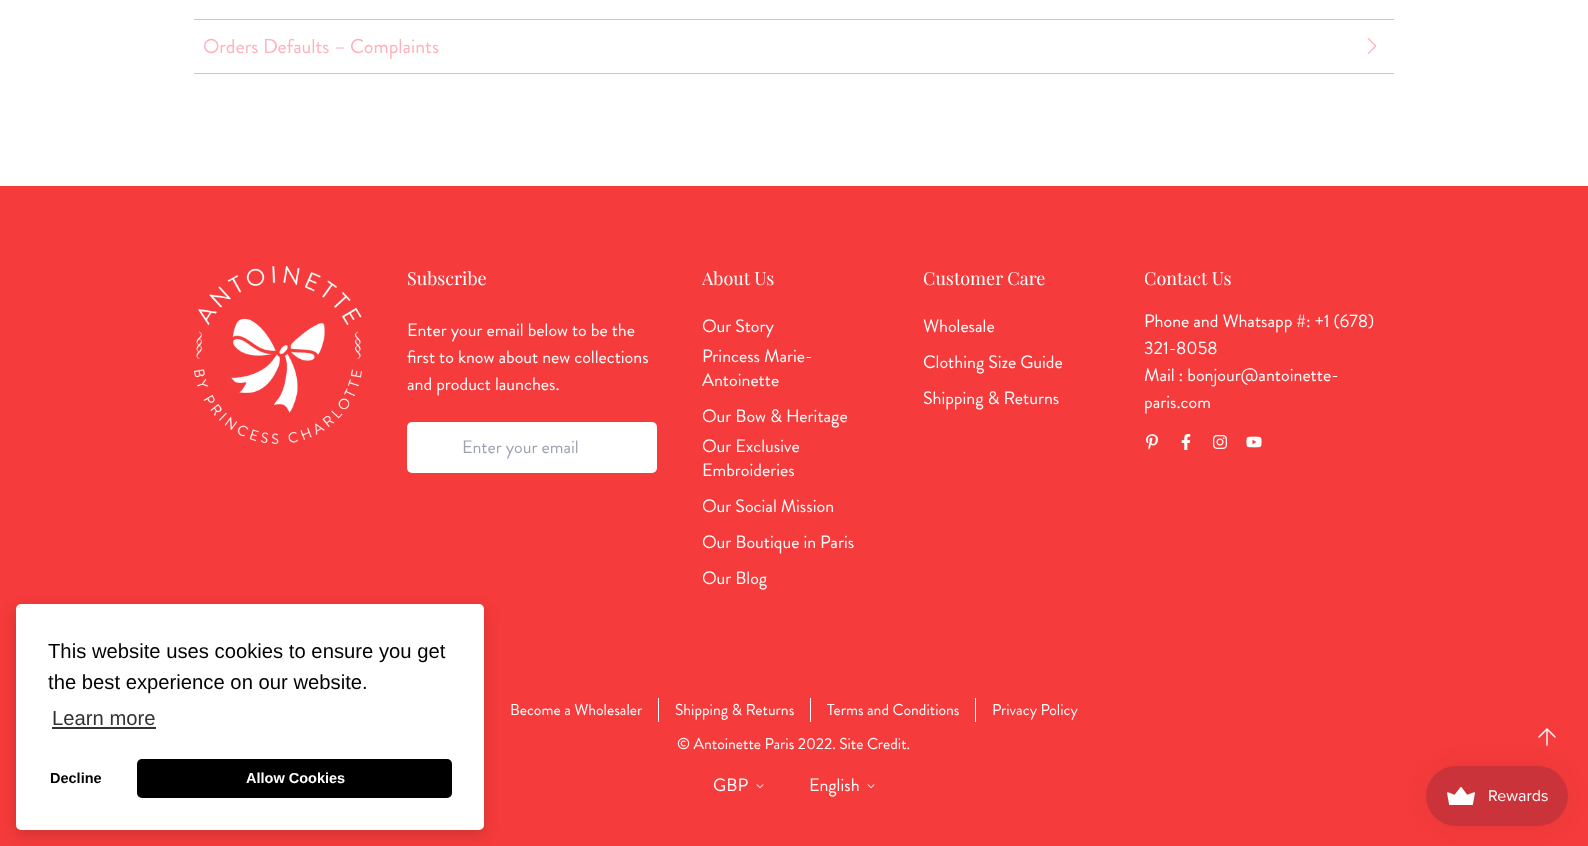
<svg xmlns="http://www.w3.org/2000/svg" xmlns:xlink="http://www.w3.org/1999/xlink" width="1588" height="846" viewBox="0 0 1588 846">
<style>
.cls-1{font:20px Brandon Grotesque;fill:#ffb1bb}
.cls-2{font:20.25px Liberation Sans;fill:#000000}
.cls-3{font:20.25px Liberation Sans;fill:#333333}
.cls-4{font:bold 14.5px Liberation Sans;fill:#000000}
.cls-5{font:bold 14.5px Liberation Sans;fill:#ffffff}
.cls-6{font:18px Playfair Display;fill:#ffffff}
.cls-7{font:18px Brandon Grotesque;fill:#ffffff}
.cls-8{font:18px Brandon Grotesque;fill:#9ca3af}
.cls-9{font:15.75px Brandon Grotesque;fill:#ffffff}
</style>
<rect width="100%" height="100%" fill="#ffffff"/>
<rect fill="#ffb1bb" x="194" y="19" width="1200" height="1"/>
<rect fill="#ffb1bb" x="194" y="73" width="1200" height="1"/>
<image xlink:href="image0.png" x="1367" y="38" width="10" height="16"/>
<rect fill="#f53b3b" x="0" y="186" width="1588" height="660"/>
<image xlink:href="image1.png" x="1538" y="728" width="18" height="18"/>
<rect fill="#000000" fill-opacity="0.15" filter="blur(7.5px)" x="16" y="609" width="468" height="226" rx="5"/>
<rect fill="#ffffff" x="16" y="604" width="468" height="226" rx="5"/>
<rect fill="#333333" x="52" y="727" width="104" height="2"/>
<rect fill="#000000" x="137" y="759" width="315" height="39" rx="5"/>
<image xlink:href="image2.png" x="194" y="266" width="168" height="178"/>
<rect fill="#ffffff" x="407" y="422" width="250" height="51" rx="5"/>
<image xlink:href="image3.png" x="1146" y="434" width="12" height="16"/>
<image xlink:href="image4.png" x="1181" y="434" width="10" height="16"/>
<image xlink:href="image5.png" x="1213" y="435" width="14" height="14"/>
<image xlink:href="image6.png" x="1246" y="436" width="16" height="12"/>
<rect fill="#ffffff" x="658" y="698" width="1" height="24"/>
<rect fill="#ffffff" x="810" y="698" width="1" height="24"/>
<rect fill="#ffffff" x="975" y="698" width="1" height="24"/>
<image xlink:href="image7.png" x="756" y="784" width="8" height="5"/>
<image xlink:href="image7.png" x="867" y="784" width="8" height="5"/>
<rect fill="#000000" fill-opacity="0.05" filter="blur(12.5px)" x="1426" y="766" width="142" height="60" rx="30"/>
<image xlink:href="image8.png" x="1426" y="766" width="142" height="60"/>
<text class="cls-1" x="203" y="53">Orders Defaults – Complaints</text>
<text class="cls-2"><tspan x="48" y="658">This website uses cookies to ensure you get</tspan><tspan x="48" y="689">the best experience on our website.</tspan></text>
<text class="cls-3" x="52" y="725">Learn more</text>
<text class="cls-4" x="50" y="783">Decline</text>
<text class="cls-5" x="246" y="783">Allow Cookies</text>
<text class="cls-6" x="407" y="285">Subscribe</text>
<text class="cls-7"><tspan x="407" y="336">Enter your email below to be the</tspan><tspan x="407" y="363">first to know about new collections</tspan><tspan x="407" y="390">and product launches.</tspan></text>
<text class="cls-8" x="462" y="453">Enter your email</text>
<text class="cls-6" x="702" y="285">About Us</text>
<text class="cls-7"><tspan x="702" y="332">Our Story</tspan><tspan x="702" y="362">Princess Marie-</tspan><tspan x="702" y="386">Antoinette</tspan></text>
<text class="cls-7"><tspan x="702" y="422">Our Bow &amp; Heritage</tspan><tspan x="702" y="452">Our Exclusive</tspan><tspan x="702" y="476">Embroideries</tspan></text>
<text class="cls-7" x="702" y="512">Our Social Mission</text>
<text class="cls-7" x="702" y="548">Our Boutique in Paris</text>
<text class="cls-7" x="702" y="584">Our Blog</text>
<text class="cls-6" x="923" y="285">Customer Care</text>
<text class="cls-7" x="923" y="332">Wholesale</text>
<text class="cls-7" x="923" y="368">Clothing Size Guide</text>
<text class="cls-7" x="923" y="404">Shipping &amp; Returns</text>
<text class="cls-6" x="1144" y="285">Contact Us</text>
<text class="cls-7"><tspan x="1144" y="327">Phone and Whatsapp #: +1 (678)</tspan><tspan x="1144" y="354">321-8058</tspan><tspan x="1144" y="381">Mail : bonjour@antoinette-</tspan><tspan x="1144" y="408">paris.com</tspan></text>
<text class="cls-9" x="510" y="715">Become a Wholesaler</text>
<text class="cls-9" x="675" y="715">Shipping &amp; Returns</text>
<text class="cls-9" x="827" y="715">Terms and Conditions</text>
<text class="cls-9" x="992" y="715">Privacy Policy</text>
<text class="cls-9" x="677" y="749">© Antoinette Paris 2022. Site Credit.</text>
<text class="cls-7" x="713" y="791">GBP</text>
<text class="cls-7" x="809" y="791">English</text>
</svg>
